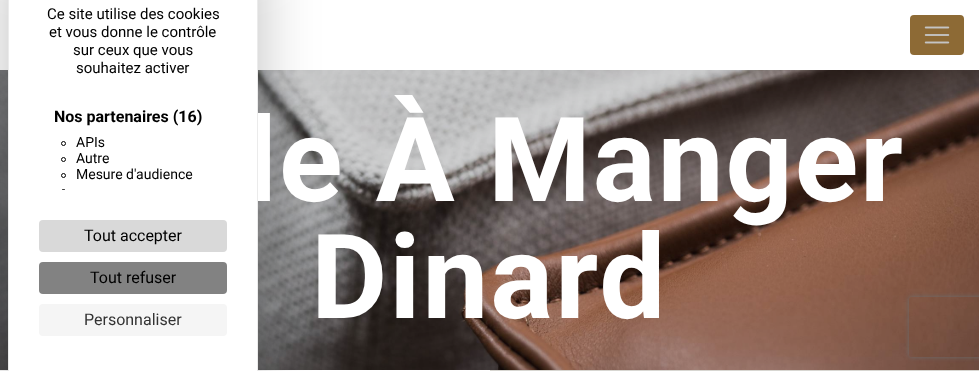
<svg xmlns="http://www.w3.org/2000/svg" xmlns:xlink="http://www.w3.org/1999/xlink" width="979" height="371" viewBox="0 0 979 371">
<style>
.cls-1{font:bold 117.5px Roboto;letter-spacing:2px;fill:#ffffff}
.cls-2{font:14px Roboto;fill:#000000}
.cls-3{font:bold 16px Roboto;fill:#000000}
.cls-4{font:15px Roboto;fill:#000000}
.cls-5{font:16px Roboto;fill:#333333}
.cls-6{font:16px Roboto;fill:#000000}
</style>
<defs>
<clipPath id="clip1"><path d="M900 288H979V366H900ZM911 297H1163C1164 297 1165 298 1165 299V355C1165 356 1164 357 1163 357H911C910 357 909 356 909 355V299C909 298 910 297 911 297Z" clip-rule="evenodd"/></clipPath>
<clipPath id="clip2"><rect x="9" y="5" width="248" height="185"/></clipPath>
</defs>
<rect width="100%" height="100%" fill="#d7d6d1"/>
<rect fill="#ffffff" x="0" y="0" width="979" height="70"/>
<image xlink:href="image1.png" x="0" y="70" width="979" height="300"/>
<rect fill="#ffffff" x="0" y="370" width="490" height="1"/>
<rect fill="#000000" fill-opacity="0.25" filter="blur(30px)" x="8" y="-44" width="250" height="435" rx="5"/>
<rect fill="#000000" fill-opacity="0.15" filter="blur(15px)" x="20" y="247" width="190" height="114" rx="8"/>
<rect fill="#000000" fill-opacity="0.1" filter="blur(20px)" x="20" y="252" width="190" height="114" rx="8"/>
<rect fill="#ffffff" x="9" y="0" width="248" height="371"/>
<rect fill="#8d6a35" x="910" y="15" width="54" height="40" rx="4"/>
<image xlink:href="image0.png" x="924" y="26" width="26" height="18"/>
<g clip-path="url(#clip1)">
<rect fill="#6c6d6e" filter="blur(2.5px)" x="909" y="297" width="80" height="60" rx="2"/>
</g>
<text class="cls-1" x="246" y="201">le À Manger</text>
<path fill="#ebebeb" fill-rule="evenodd" d="M13-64H253C256-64 258-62 258-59V371H8V-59C8-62 10-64 13-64ZM13-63H253C255-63 257-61 257-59V371H9V-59C9-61 11-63 13-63Z"/>
<g clip-path="url(#clip2)">
<circle fill="none" stroke="#000000" cx="63.5" cy="191.5" r="2"/>
</g>
<text class="cls-2" x="76" y="179">Mesure d'audience</text>
<circle fill="none" stroke="#000000" cx="63.5" cy="175.5" r="2"/>
<text class="cls-2" x="76" y="163">Autre</text>
<circle fill="none" stroke="#000000" cx="63.5" cy="159.5" r="2"/>
<text class="cls-2" x="76" y="147">APIs</text>
<circle fill="none" stroke="#000000" cx="63.5" cy="143.5" r="2"/>
<text class="cls-3" x="54" y="122">Nos partenaires (16)</text>
<text class="cls-4" x="76" y="73">souhaitez activer</text>
<text class="cls-4" x="73" y="55">sur ceux que vous</text>
<text class="cls-4" x="49" y="37">et vous donne le contrôle</text>
<text class="cls-4" x="47" y="19">Ce site utilise des cookies</text>
<rect fill="#f5f5f5" x="39" y="304" width="188" height="32" rx="4"/>
<text class="cls-5" x="84" y="325">Personnaliser</text>
<rect fill="#828282" x="39" y="262" width="188" height="32" rx="4"/>
<text class="cls-6" x="90" y="283">Tout refuser</text>
<rect fill="#d9d9d9" x="39" y="220" width="188" height="32" rx="4"/>
<text class="cls-6" x="84" y="241">Tout accepter</text>
<text class="cls-1" x="311" y="318">Dinard</text>
</svg>
